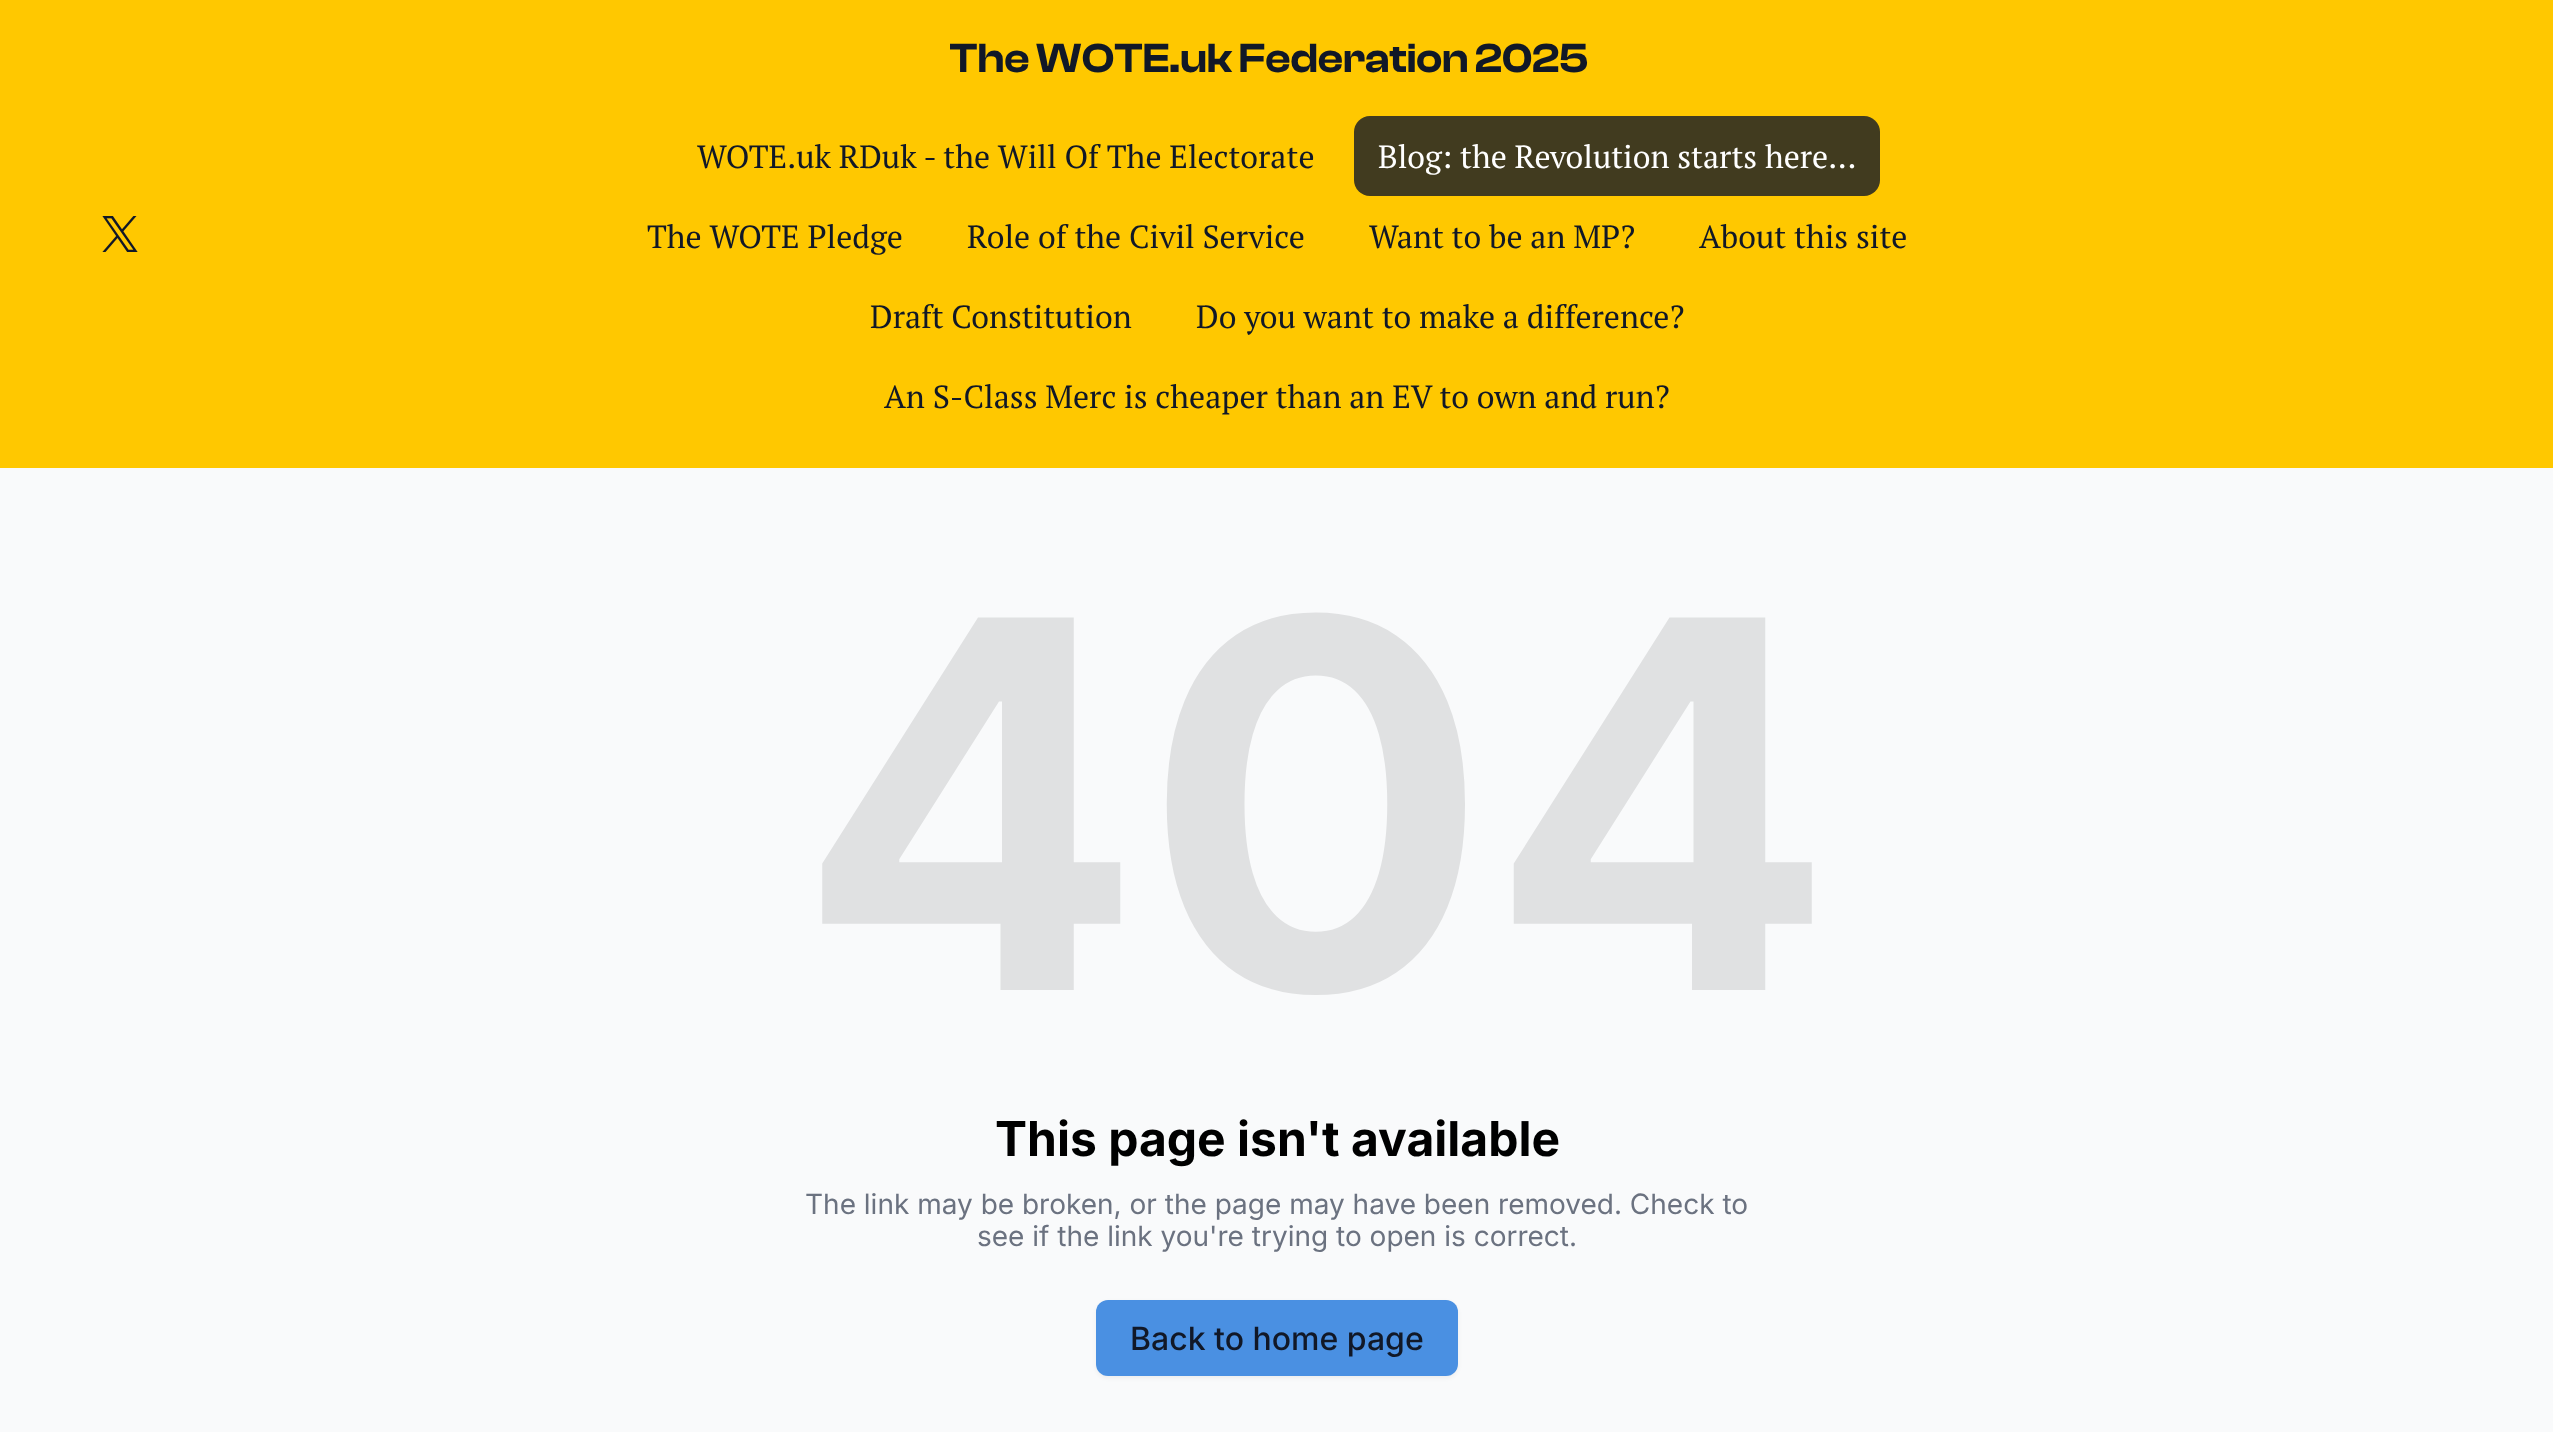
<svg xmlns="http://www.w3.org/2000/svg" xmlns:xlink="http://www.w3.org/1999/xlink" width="2553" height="1432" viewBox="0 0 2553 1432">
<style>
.cls-1{font:600 42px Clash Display;fill:#111827}
.cls-2{font:32px PT Serif;fill:#111827}
.cls-3{font:32px PT Serif;fill:#ffffff}
.cls-4{font:bold 512px Inter;fill:#e0e1e2}
.cls-5{font:bold 48px Inter;fill:#000000}
.cls-6{font:28px Inter;fill:#6b7280}
.cls-7{font:500 32px Inter;fill:#111827}
</style>
<defs>
<clipPath id="clip1"><rect x="950" y="32" width="654" height="52"/></clipPath>
</defs>
<rect width="100%" height="100%" fill="#f9fafb"/>
<rect fill="#ffc800" x="0" y="0" width="2553" height="468"/>
<image xlink:href="image0.png" x="102" y="216" width="36" height="36"/>
<rect fill="#413b1f" x="1354" y="116" width="526" height="80" rx="16"/>
<rect fill="#000000" fill-opacity="0.05" filter="blur(2px)" x="1096" y="1302" width="362" height="76" rx="12"/>
<rect fill="#4a90e2" x="1096" y="1300" width="362" height="76" rx="12"/>
<g clip-path="url(#clip1)">
<text class="cls-1" x="949" y="72">The WOTE.uk Federation</text>
</g>
<text class="cls-1" x="1475" y="72">2025</text>
<text class="cls-2" x="697" y="168">WOTE.uk RDuk - the Will Of The Electorate</text>
<text class="cls-3" x="1378" y="168">Blog: the Revolution starts here...</text>
<text class="cls-2" x="647" y="248">The WOTE Pledge</text>
<text class="cls-2" x="967" y="248">Role of the Civil Service</text>
<text class="cls-2" x="1369" y="248">Want to be an MP?</text>
<text class="cls-2" x="1699" y="248">About this site</text>
<text class="cls-2" x="870" y="328">Draft Constitution</text>
<text class="cls-2" x="1196" y="328">Do you want to make a difference?</text>
<text class="cls-2" x="884" y="408">An S-Class Merc is cheaper than an EV to own and run?</text>
<text class="cls-4" x="797" y="990">404</text>
<text class="cls-5" x="995" y="1156">This page isn't available</text>
<text class="cls-6" x="805" y="1214">The link may be broken, or the page may have been removed. Check to</text>
<text class="cls-6" x="977" y="1246">see if the link you're trying to open is correct.</text>
<text class="cls-7" x="1130" y="1350">Back to home page</text>
</svg>
